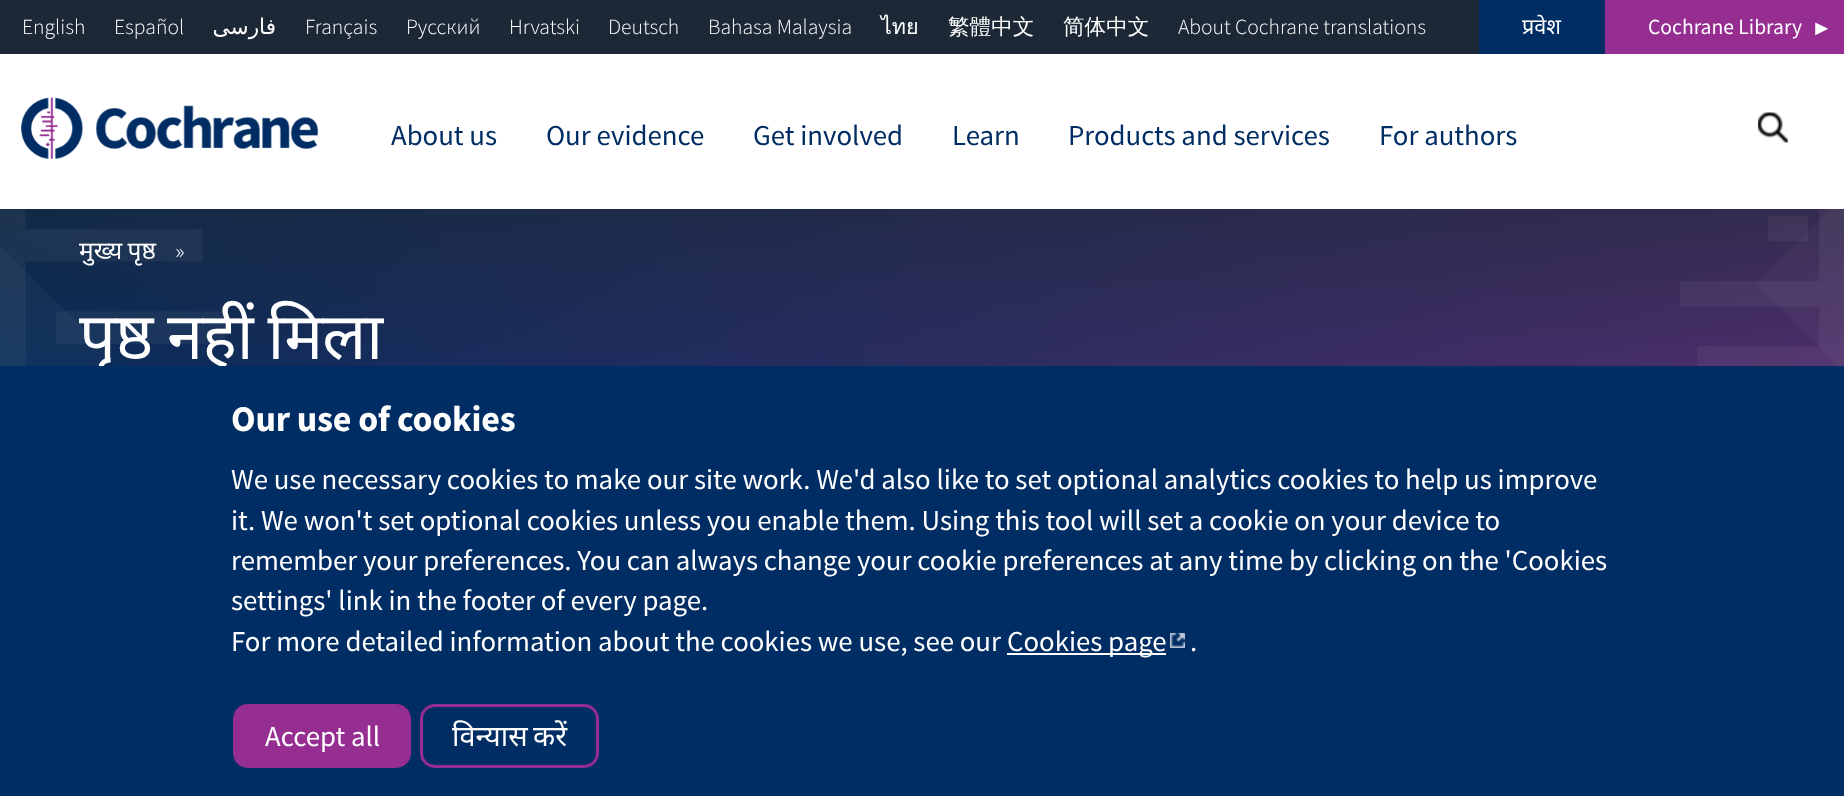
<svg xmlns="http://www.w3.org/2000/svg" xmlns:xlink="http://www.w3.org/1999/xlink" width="1844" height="796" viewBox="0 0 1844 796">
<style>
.cls-1{font:300 21.6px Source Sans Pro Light;fill:#ffffff}
.cls-2{font:21.6px DejaVu Sans;direction:rtl;fill:#ffffff}
.cls-3{font:21.6px Loma;fill:#ffffff}
.cls-4{font:500 21.6px WenQuanYi Zen Hei;fill:#ffffff}
.cls-5{font:21.6px Noto Sans;fill:#ffffff}
.cls-6{font:21.6px Source Sans Pro;fill:#ffffff}
.cls-7{font:21.6px Liberation Sans;fill:#ffffff}
.cls-8{font:28.8px Source Sans Pro;fill:#002d64}
.cls-9{font:24.5px Noto Sans;fill:#ffffff}
.cls-10{font:300 24px Source Sans Pro Light;fill:#ffffff}
.cls-11{font:65px Noto Sans;letter-spacing:-1px;fill:#ffffff}
.cls-12{font:bold 36px Source Sans Pro;letter-spacing:-0.2px;fill:#ffffff}
.cls-13{font:28.8px Source Sans Pro;fill:#ffffff}
.cls-14{font:28.8px Noto Sans;fill:#ffffff}
</style>
<defs>
<linearGradient id="g1" gradientUnits="userSpaceOnUse" x1="0" y1="342" x2="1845" y2="342"><stop offset="0" stop-color="#002d64"/><stop offset="1" stop-color="#5f307d"/></linearGradient>
<linearGradient id="g2" gradientUnits="userSpaceOnUse" x1="923" y1="64" x2="923" y2="476"><stop offset="0" stop-color="#1c2836"/><stop offset="1" stop-color="#1c2836" stop-opacity="0"/></linearGradient>
</defs>
<rect width="100%" height="100%" fill="#1c2836"/>
<rect fill="#ffffff" x="0" y="54" width="1844" height="155"/>
<rect fill="#002d64" x="1479" y="0" width="126" height="54"/>
<rect fill="#962d91" x="1605" y="0" width="239" height="54"/>
<image xlink:href="image0.png" x="21" y="97" width="297" height="62"/>
<image xlink:href="image1.png" x="1758" y="112" width="30" height="31"/>
<rect fill="url(#g1)" x="0" y="209" width="1844" height="157"/>
<rect fill="url(#g2)" x="0" y="209" width="1844" height="157"/>
<image xlink:href="image2.png" x="0" y="209" width="1844" height="157"/>
<image xlink:href="image3.png" x="0" y="209" width="1844" height="157"/>
<text class="cls-1" x="22" y="34">English</text>
<text class="cls-1" x="114" y="34">Español</text>
<text class="cls-2" x="276" y="34">فارسی</text>
<text class="cls-1" x="305" y="34">Français</text>
<text class="cls-1" x="406" y="34">Русский</text>
<text class="cls-1" x="509" y="34">Hrvatski</text>
<text class="cls-1" x="608" y="34">Deutsch</text>
<text class="cls-1" x="708" y="34">Bahasa Malaysia</text>
<text class="cls-3" x="881" y="34">ไทย</text>
<text class="cls-4" x="948" y="34">繁體中文</text>
<text class="cls-4" x="1063" y="34">简体中文</text>
<text class="cls-1" x="1178" y="34">About Cochrane translations</text>
<text class="cls-5" x="1522" y="34">प्रवेश</text>
<text class="cls-6" x="1648" y="34">Cochrane Library</text>
<text class="cls-7" x="1811" y="35">►</text>
<text class="cls-8" x="391" y="145">About us</text>
<text class="cls-8" x="546" y="145">Our evidence</text>
<text class="cls-8" x="753" y="145">Get involved</text>
<text class="cls-8" x="952" y="145">Learn</text>
<text class="cls-8" x="1068" y="145">Products and services</text>
<text class="cls-8" x="1379" y="145">For authors</text>
<text class="cls-9" x="79" y="259" word-spacing="-1">मुख्य पृष्ठ</text>
<text class="cls-10" x="175" y="259">»</text>
<text class="cls-11" x="79" y="359" word-spacing="-1">पृष्ठ नहीं मिला</text>
<rect fill="#002d64" x="0" y="366" width="1844" height="430"/>
<text class="cls-12" x="231" y="431">Our use of cookies</text>
<text class="cls-13"><tspan x="231" y="489">We use necessary cookies to make our site work. We'd also like to set optional analytics cookies to help us improve</tspan><tspan x="231" y="530">it. We won't set optional cookies unless you enable them. Using this tool will set a cookie on your device to</tspan><tspan x="231" y="570">remember your preferences. You can always change your cookie preferences at any time by clicking on the 'Cookies</tspan><tspan x="231" y="610">settings' link in the footer of every page.</tspan><tspan x="231" y="651">For more detailed information about the cookies we use, see our</tspan></text>
<rect fill="#ffffff" x="1007" y="653" width="159" height="2"/>
<text class="cls-13" x="1007" y="651">Cookies page</text>
<image xlink:href="image4.png" x="1170" y="633" width="15" height="15"/>
<text class="cls-13" x="1190" y="651">.</text>
<rect fill="#962d91" stroke="#962d91" stroke-width="3" x="234.5" y="705.5" width="175" height="61" rx="13.5"/>
<text class="cls-13" x="265" y="746">Accept all</text>
<rect fill="none" stroke="#962d91" stroke-width="3" x="421.5" y="705.5" width="176" height="61" rx="13.5"/>
<text class="cls-14" x="452" y="746" word-spacing="-2">विन्यास करें</text>
</svg>
